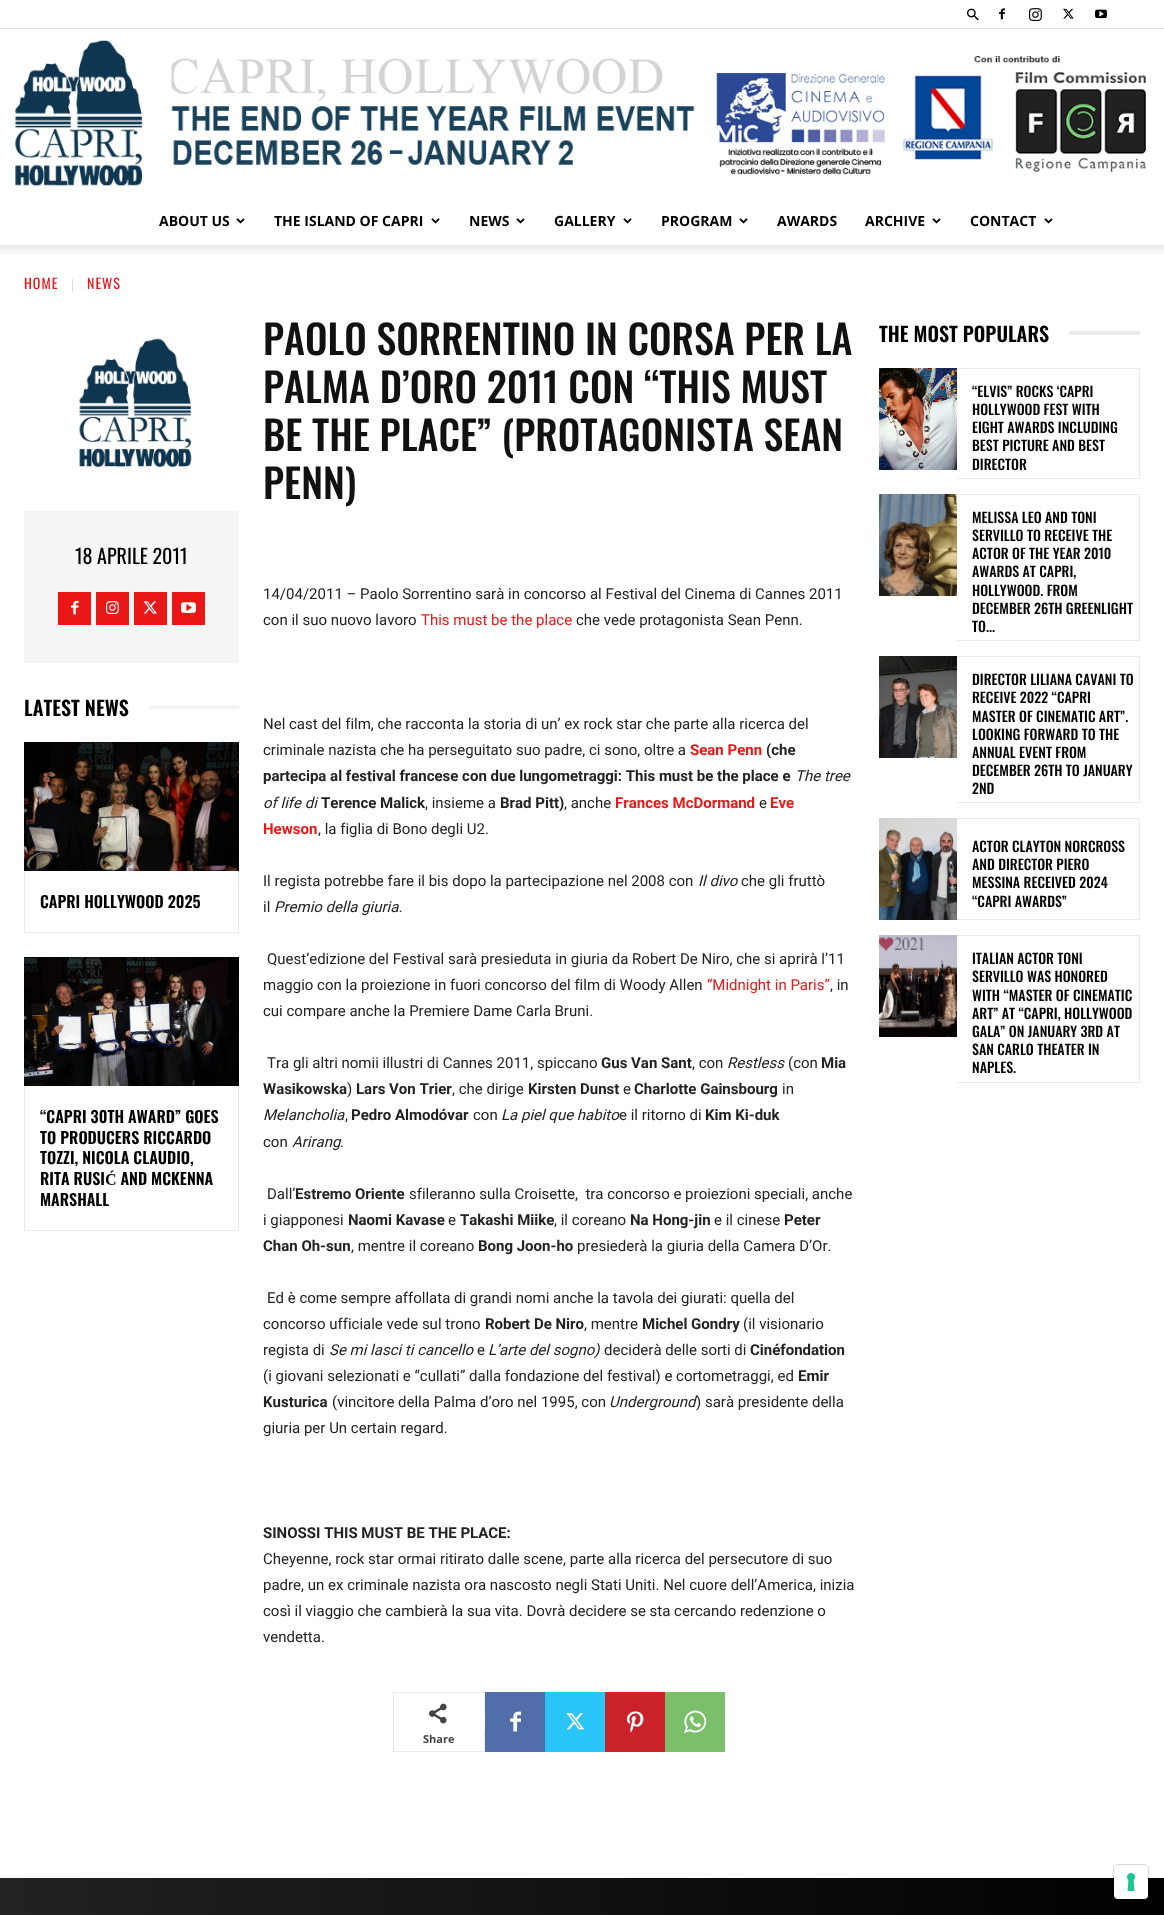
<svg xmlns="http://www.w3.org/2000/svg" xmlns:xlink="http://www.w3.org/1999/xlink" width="1164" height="1915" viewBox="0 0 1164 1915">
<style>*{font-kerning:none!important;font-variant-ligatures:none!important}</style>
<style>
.cls-1{font:bold 14px Open Sans;fill:#000000}
.cls-2{font:14px Oswald;letter-spacing:1px;fill:#ea1717}
.cls-3{font:20px Oswald;fill:#000000}
.cls-4{font:600 20px Oswald;fill:#000000}
.cls-5{font:600 16px Oswald;fill:#000000}
.cls-6{font:500 40px Oswald;fill:#111111}
.cls-7{font:15px Roboto;fill:#222222}
.cls-8{font:15px Roboto;fill:#ea1717}
.cls-9{font:bold 15px Roboto;fill:#ea1717}
.cls-10{font:bold 15px Roboto;fill:#222222}
.cls-11{font:italic 15px Roboto;fill:#222222}
.cls-12{font:bold 11px Open Sans;fill:#444444}
.cls-13{font:500 14px Oswald;fill:#000000}
</style>
<defs>
<linearGradient id="g1" gradientUnits="userSpaceOnUse" x1="1164" y1="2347" x2="0" y2="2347"><stop offset="0" stop-color="#000000"/><stop offset="1" stop-color="#222222"/></linearGradient>
</defs>
<rect width="100%" height="100%" fill="#ffffff"/>
<rect fill="#e0e0e0" x="0" y="28" width="1164" height="1"/>
<image xlink:href="image0.png" x="967" y="8" width="12" height="13"/>
<image xlink:href="image1.png" x="999" y="8" width="6" height="12"/>
<image xlink:href="image2.png" x="1029" y="8" width="13" height="13"/>
<image xlink:href="image3.png" x="1063" y="8" width="11" height="11"/>
<image xlink:href="image4.png" x="1095" y="9" width="12" height="10"/>
<image xlink:href="image5.png" x="15" y="40" width="1131" height="146"/>
<image xlink:href="image6.png" x="236" y="218" width="9" height="6"/>
<image xlink:href="image6.png" x="431" y="218" width="9" height="6"/>
<image xlink:href="image6.png" x="516" y="218" width="9" height="6"/>
<image xlink:href="image6.png" x="623" y="218" width="9" height="6"/>
<image xlink:href="image6.png" x="739" y="218" width="9" height="6"/>
<image xlink:href="image6.png" x="932" y="218" width="9" height="6"/>
<image xlink:href="image6.png" x="1044" y="218" width="9" height="6"/>
<image xlink:href="image7.png" x="0" y="245" width="1164" height="9"/>
<rect fill="#dddddd" x="72" y="279" width="1" height="13"/>
<image xlink:href="image8.png" x="78" y="338" width="114" height="130"/>
<rect fill="#f5f5f5" x="24" y="511" width="215" height="152"/>
<rect fill="#ea1717" x="58" y="592" width="33" height="33"/>
<image xlink:href="image9.png" x="71" y="600" width="8" height="15"/>
<rect fill="#ea1717" x="96" y="592" width="33" height="33"/>
<image xlink:href="image10.png" x="106" y="601" width="13" height="13"/>
<rect fill="#ea1717" x="134" y="592" width="33" height="33"/>
<image xlink:href="image11.png" x="143" y="601" width="14" height="13"/>
<rect fill="#ea1717" x="172" y="592" width="33" height="33"/>
<image xlink:href="image12.png" x="181" y="602" width="15" height="11"/>
<rect fill="#f5f5f5" x="149" y="705" width="90" height="4"/>
<image xlink:href="image13.png" x="24" y="742" width="215" height="129"/>
<rect fill="#eaeaea" x="238" y="871" width="1" height="62"/>
<rect fill="#eaeaea" x="24" y="932" width="215" height="1"/>
<rect fill="#eaeaea" x="24" y="871" width="1" height="62"/>
<image xlink:href="image14.png" x="24" y="957" width="215" height="129"/>
<rect fill="#eaeaea" x="238" y="1086" width="1" height="145"/>
<rect fill="#eaeaea" x="24" y="1230" width="215" height="1"/>
<rect fill="#eaeaea" x="24" y="1086" width="1" height="145"/>
<rect fill="none" stroke="#e9e9e9" x="393.5" y="1692.5" width="91" height="59"/>
<image xlink:href="image15.png" x="429" y="1703" width="18" height="21"/>
<path fill="#e9e9e9" d="M484 1731V1713L495 1722Z"/>
<path fill="#ffffff" d="M484 1730V1714L494 1722Z"/>
<rect fill="#516eab" x="485" y="1692" width="60" height="60"/>
<image xlink:href="image16.png" x="510" y="1711" width="11" height="21"/>
<rect fill="#29c5f6" x="545" y="1692" width="60" height="60"/>
<image xlink:href="image17.png" x="566" y="1713" width="19" height="17"/>
<rect fill="#ca212a" x="605" y="1692" width="60" height="60"/>
<image xlink:href="image18.png" x="627" y="1711" width="17" height="22"/>
<rect fill="#7bbf6a" x="665" y="1692" width="60" height="60"/>
<image xlink:href="image19.png" x="684" y="1710" width="23" height="23"/>
<rect fill="#eaeaea" x="1069" y="331" width="71" height="4"/>
<image xlink:href="image20.png" x="879" y="368" width="78" height="102"/>
<rect fill="#eaeaea" x="957" y="368" width="183" height="1"/>
<rect fill="#eaeaea" x="1139" y="368" width="1" height="111"/>
<rect fill="#eaeaea" x="957" y="478" width="183" height="1"/>
<image xlink:href="image21.png" x="879" y="494" width="78" height="102"/>
<rect fill="#eaeaea" x="957" y="494" width="183" height="1"/>
<rect fill="#eaeaea" x="1139" y="494" width="1" height="147"/>
<rect fill="#eaeaea" x="957" y="640" width="183" height="1"/>
<image xlink:href="image22.png" x="879" y="656" width="78" height="102"/>
<rect fill="#eaeaea" x="957" y="656" width="183" height="1"/>
<rect fill="#eaeaea" x="1139" y="656" width="1" height="147"/>
<rect fill="#eaeaea" x="957" y="802" width="183" height="1"/>
<image xlink:href="image23.png" x="879" y="818" width="78" height="102"/>
<rect fill="#eaeaea" x="957" y="818" width="183" height="1"/>
<rect fill="#eaeaea" x="1139" y="818" width="1" height="102"/>
<rect fill="#eaeaea" x="957" y="919" width="183" height="1"/>
<image xlink:href="image24.png" x="879" y="935" width="78" height="102"/>
<rect fill="#eaeaea" x="957" y="935" width="183" height="1"/>
<rect fill="#eaeaea" x="1139" y="935" width="1" height="148"/>
<rect fill="#eaeaea" x="957" y="1082" width="183" height="1"/>
<rect fill="url(#g1)" x="0" y="1878" width="1164" height="37"/>
<rect fill="none" stroke="#000000" stroke-opacity="0.15" x="1113.5" y="1864.5" width="35" height="35" rx="4.5"/>
<rect fill="#ffffff" x="1114" y="1865" width="34" height="34" rx="4"/>
<image xlink:href="image25.png" x="1127" y="1873" width="8" height="18"/>
<text class="cls-1" x="159" y="226">ABOUT US</text>
<text class="cls-1" x="274" y="226">THE ISLAND OF CAPRI</text>
<text class="cls-1" x="469" y="226">NEWS</text>
<text class="cls-1" x="554" y="226">GALLERY</text>
<text class="cls-1" x="661" y="226">PROGRAM</text>
<text class="cls-1" x="777" y="226">AWARDS</text>
<text class="cls-1" x="865" y="226">ARCHIVE</text>
<text class="cls-1" x="970" y="226">CONTACT</text>
<text class="cls-2" x="24" y="289">HOME</text>
<text class="cls-2" x="87" y="289">NEWS</text>
<text class="cls-3" x="75" y="564">18 APRILE 2011</text>
<text class="cls-4" x="24" y="716">LATEST NEWS</text>
<text class="cls-5" x="40" y="908">CAPRI HOLLYWOOD 2025</text>
<text class="cls-5"><tspan x="40" y="1123">“CAPRI 30TH AWARD” GOES</tspan><tspan x="40" y="1144">TO PRODUCERS RICCARDO</tspan><tspan x="40" y="1164">TOZZI, NICOLA CLAUDIO,</tspan><tspan x="40" y="1185">RITA RUSIĆ AND MCKENNA</tspan><tspan x="40" y="1206">MARSHALL</tspan></text>
<text class="cls-6"><tspan x="263" y="355">PAOLO SORRENTINO IN CORSA PER LA</tspan><tspan x="263" y="403">PALMA D’ORO 2011 CON “THIS MUST</tspan><tspan x="263" y="451">BE THE PLACE” (PROTAGONISTA SEAN</tspan><tspan x="263" y="499">PENN)</tspan></text>
<text class="cls-7"><tspan x="263" y="599">14/04/2011 – Paolo Sorrentino sarà in concorso al Festival del Cinema di Cannes 2011</tspan><tspan x="263" y="625">con il suo nuovo lavoro</tspan></text>
<text class="cls-8" x="421" y="625">This must be the place</text>
<text class="cls-7" x="576" y="625">che vede protagonista Sean Penn.</text>
<text class="cls-7"><tspan x="263" y="729">Nel cast del film, che racconta la storia di un’ ex rock star che parte alla ricerca del</tspan><tspan x="263" y="755">criminale nazista che ha perseguitato suo padre, ci sono, oltre a</tspan></text>
<text class="cls-9" x="690" y="755">Sean Penn</text>
<text class="cls-10" x="766" y="755">(che</text>
<text class="cls-10" x="263" y="781">partecipa al festival francese con due lungometraggi: This must be the place e</text>
<text class="cls-11" x="795" y="781">The tree</text>
<text class="cls-11" x="263" y="808">of life di</text>
<text class="cls-10" x="321" y="808">Terence Malick</text>
<text class="cls-7" x="425" y="808">, insieme a</text>
<text class="cls-10" x="500" y="808">Brad Pitt)</text>
<text class="cls-7" x="564" y="808">, anche</text>
<text class="cls-9" x="615" y="808">Frances McDormand</text>
<text class="cls-7" x="759" y="808">e</text>
<text class="cls-9" x="770" y="808">Eve</text>
<text class="cls-9" x="263" y="834">Hewson</text>
<text class="cls-7" x="318" y="834">, la figlia di Bono degli U2.</text>
<text class="cls-7" x="263" y="886">Il regista potrebbe fare il bis dopo la partecipazione nel 2008 con</text>
<text class="cls-11" x="698" y="886">Il divo</text>
<text class="cls-7" x="741" y="886">che gli fruttò</text>
<text class="cls-7" x="263" y="912">il</text>
<text class="cls-11" x="274" y="912">Premio della giuria.</text>
<text class="cls-7" x="267" y="964">Quest’edizione del Festival sarà presieduta in giuria da Robert De Niro, che si aprirà l’11</text>
<text class="cls-7" x="263" y="990">maggio con la proiezione in fuori concorso del film di Woody Allen</text>
<text class="cls-8" x="707" y="990">“Midnight in Paris”</text>
<text class="cls-7" x="830" y="990">, in</text>
<text class="cls-7" x="263" y="1016">cui compare anche la Premiere Dame Carla Bruni.</text>
<text class="cls-7" x="267" y="1068">Tra gli altri nomii illustri di Cannes 2011, spiccano</text>
<text class="cls-10" x="601" y="1068">Gus Van Sant</text>
<text class="cls-7" x="692" y="1068">, con</text>
<text class="cls-11" x="727" y="1068">Restless</text>
<text class="cls-7" x="788" y="1068">(con</text>
<text class="cls-10" x="821" y="1068">Mia</text>
<text class="cls-10" x="263" y="1094">Wasikowska</text>
<text class="cls-7" x="347" y="1094">)</text>
<text class="cls-10" x="356" y="1094">Lars Von Trier</text>
<text class="cls-7" x="452" y="1094">, che dirige</text>
<text class="cls-10" x="528" y="1094">Kirsten Dunst</text>
<text class="cls-7" x="623" y="1094">e</text>
<text class="cls-10" x="634" y="1094">Charlotte Gainsbourg</text>
<text class="cls-7" x="782" y="1094">in</text>
<text class="cls-11" x="263" y="1120">Melancholia</text>
<text class="cls-7" x="345" y="1120">,</text>
<text class="cls-10" x="351" y="1120">Pedro Almodóvar</text>
<text class="cls-7" x="473" y="1120">con</text>
<text class="cls-11" x="501" y="1120">La piel que habito</text>
<text class="cls-7" x="619" y="1120">e il ritorno di</text>
<text class="cls-10" x="705" y="1120">Kim Ki-duk</text>
<text class="cls-7" x="263" y="1147">con</text>
<text class="cls-11" x="292" y="1147">Arirang</text>
<text class="cls-7" x="340" y="1147">.</text>
<text class="cls-7" x="267" y="1199">Dall’</text>
<text class="cls-10" x="295" y="1199">Estremo Oriente</text>
<text class="cls-7" xml:space="preserve" x="409" y="1199">sfileranno sulla Croisette,  tra concorso e proiezioni speciali, anche</text>
<text class="cls-7" x="263" y="1225">i giapponesi</text>
<text class="cls-10" x="348" y="1225">Naomi Kavase</text>
<text class="cls-7" x="448" y="1225">e</text>
<text class="cls-10" x="460" y="1225">Takashi Miike</text>
<text class="cls-7" x="554" y="1225">, il coreano</text>
<text class="cls-10" x="630" y="1225">Na Hong-jin</text>
<text class="cls-7" x="714" y="1225">e il cinese</text>
<text class="cls-10" x="784" y="1225">Peter</text>
<text class="cls-10" x="263" y="1251">Chan Oh-sun</text>
<text class="cls-7" x="351" y="1251">, mentre il coreano</text>
<text class="cls-10" x="478" y="1251">Bong Joon-ho</text>
<text class="cls-7" x="577" y="1251">presiederà la giuria della Camera D’Or.</text>
<text class="cls-7" x="267" y="1303">Ed è come sempre affollata di grandi nomi anche la tavola dei giurati: quella del</text>
<text class="cls-7" x="263" y="1329">concorso ufficiale vede sul trono</text>
<text class="cls-10" x="485" y="1329">Robert De Niro</text>
<text class="cls-7" x="584" y="1329">, mentre</text>
<text class="cls-10" x="642" y="1329">Michel Gondry</text>
<text class="cls-7" x="743" y="1329">(il visionario</text>
<text class="cls-7" x="263" y="1355">regista di</text>
<text class="cls-11" x="329" y="1355">Se mi lasci ti cancello</text>
<text class="cls-7" x="477" y="1355">e</text>
<text class="cls-11" x="488" y="1355">L’arte del sogno)</text>
<text class="cls-7" x="604" y="1355">deciderà delle sorti di</text>
<text class="cls-10" x="750" y="1355">Cinéfondation</text>
<text class="cls-7" x="263" y="1381">(i giovani selezionati e “cullati” dalla fondazione del festival) e cortometraggi, ed</text>
<text class="cls-10" x="798" y="1381">Emir</text>
<text class="cls-10" x="263" y="1407">Kusturica</text>
<text class="cls-7" x="332" y="1407">(vincitore della Palma d’oro nel 1995, con</text>
<text class="cls-11" x="609" y="1407">Underground</text>
<text class="cls-7" x="696" y="1407">) sarà presidente della</text>
<text class="cls-7" x="263" y="1433">giuria per Un certain regard.</text>
<text class="cls-10" x="263" y="1538">SINOSSI THIS MUST BE THE PLACE:</text>
<text class="cls-7"><tspan x="263" y="1564">Cheyenne, rock star ormai ritirato dalle scene, parte alla ricerca del persecutore di suo</tspan><tspan x="263" y="1590">padre, un ex criminale nazista ora nascosto negli Stati Uniti. Nel cuore dell’America, inizia</tspan><tspan x="263" y="1616">così il viaggio che cambierà la sua vita. Dovrà decidere se sta cercando redenzione o</tspan><tspan x="263" y="1642">vendetta.</tspan></text>
<text class="cls-12" x="423" y="1743">Share</text>
<text class="cls-4" x="879" y="342">THE MOST POPULARS</text>
<text class="cls-13"><tspan x="972" y="397">“ELVIS” ROCKS ‘CAPRI</tspan><tspan x="972" y="415">HOLLYWOOD FEST WITH</tspan><tspan x="972" y="433">EIGHT AWARDS INCLUDING</tspan><tspan x="972" y="451">BEST PICTURE AND BEST</tspan><tspan x="972" y="470">DIRECTOR</tspan></text>
<text class="cls-13"><tspan x="972" y="523">MELISSA LEO AND TONI</tspan><tspan x="972" y="541">SERVILLO TO RECEIVE THE</tspan><tspan x="972" y="559">ACTOR OF THE YEAR 2010</tspan><tspan x="972" y="577">AWARDS AT CAPRI,</tspan><tspan x="972" y="596">HOLLYWOOD. FROM</tspan><tspan x="972" y="614">DECEMBER 26TH GREENLIGHT</tspan><tspan x="972" y="632">TO...</tspan></text>
<text class="cls-13"><tspan x="972" y="685">DIRECTOR LILIANA CAVANI TO</tspan><tspan x="972" y="703">RECEIVE 2022 “CAPRI</tspan><tspan x="972" y="722">MASTER OF CINEMATIC ART”.</tspan><tspan x="972" y="740">LOOKING FORWARD TO THE</tspan><tspan x="972" y="758">ANNUAL EVENT FROM</tspan><tspan x="972" y="776">DECEMBER 26TH TO JANUARY</tspan><tspan x="972" y="794">2ND</tspan></text>
<text class="cls-13"><tspan x="972" y="852">ACTOR CLAYTON NORCROSS</tspan><tspan x="972" y="870">AND DIRECTOR PIERO</tspan><tspan x="972" y="888">MESSINA RECEIVED 2024</tspan><tspan x="972" y="907">“CAPRI AWARDS”</tspan></text>
<text class="cls-13"><tspan x="972" y="964">ITALIAN ACTOR TONI</tspan><tspan x="972" y="982">SERVILLO WAS HONORED</tspan><tspan x="972" y="1001">WITH “MASTER OF CINEMATIC</tspan><tspan x="972" y="1019">ART” AT “CAPRI, HOLLYWOOD</tspan><tspan x="972" y="1037">GALA” ON JANUARY 3RD AT</tspan><tspan x="972" y="1055">SAN CARLO THEATER IN</tspan><tspan x="972" y="1073">NAPLES.</tspan></text>
</svg>
